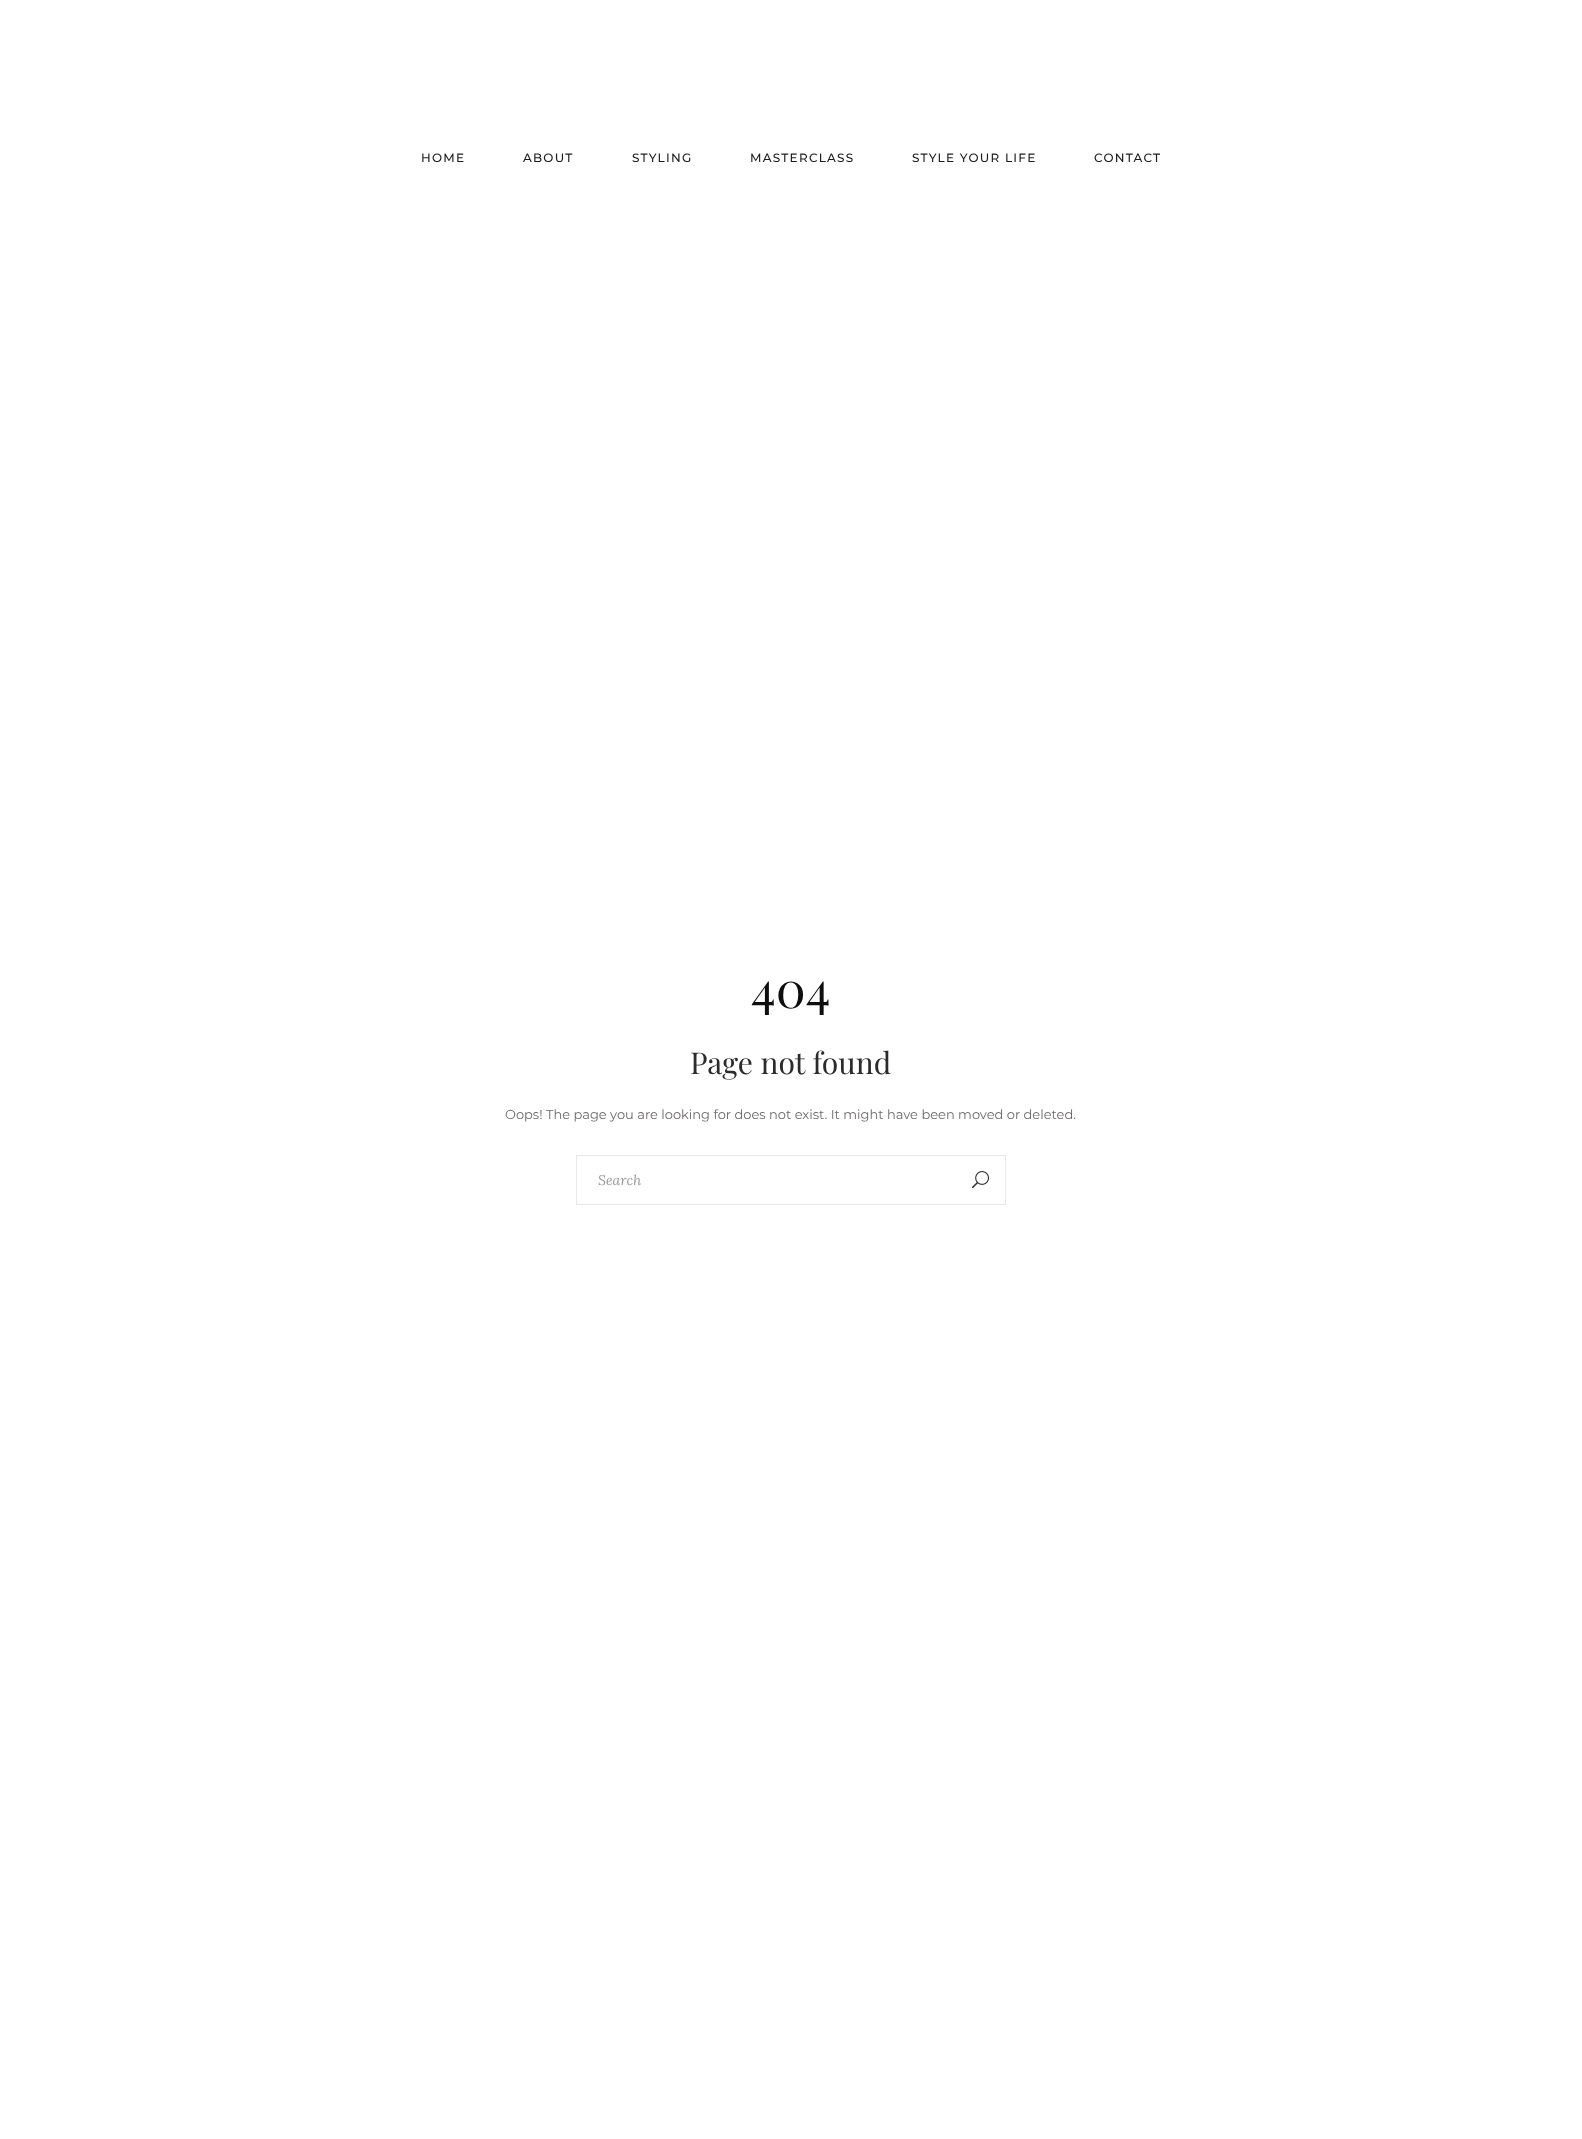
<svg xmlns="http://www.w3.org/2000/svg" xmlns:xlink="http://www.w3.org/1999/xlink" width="1582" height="2139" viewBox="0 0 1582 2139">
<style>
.cls-1{font:500 12px Montserrat;letter-spacing:1.25px;fill:#1b1b1b}
.cls-2{font:50px Playfair Display;fill:#0e0e0e}
.cls-3{font:30px Playfair Display;fill:#2b2b2b}
.cls-4{font:13px Montserrat;fill:#6d6a6a}
.cls-5{font:italic 14px Lora;fill:#999999}
</style>
<rect width="100%" height="100%" fill="#ffffff"/>
<rect fill="none" stroke="#e8e8e8" x="576.5" y="1155.5" width="429" height="49"/>
<image xlink:href="image0.png" x="972" y="1171" width="17" height="18"/>
<text class="cls-1" x="421" y="162">HOME</text>
<text class="cls-1" x="523" y="162">ABOUT</text>
<text class="cls-1" x="632" y="162">STYLING</text>
<text class="cls-1" x="750" y="162">MASTERCLASS</text>
<text class="cls-1" x="912" y="162">STYLE YOUR LIFE</text>
<text class="cls-1" x="1094" y="162">CONTACT</text>
<text class="cls-2" x="751" y="1008">404</text>
<text class="cls-3" x="690" y="1074">Page not found</text>
<text class="cls-4" x="505" y="1119">Oops! The page you are looking for does not exist. It might have been moved or deleted.</text>
<text class="cls-5" x="598" y="1185">Search</text>
</svg>
